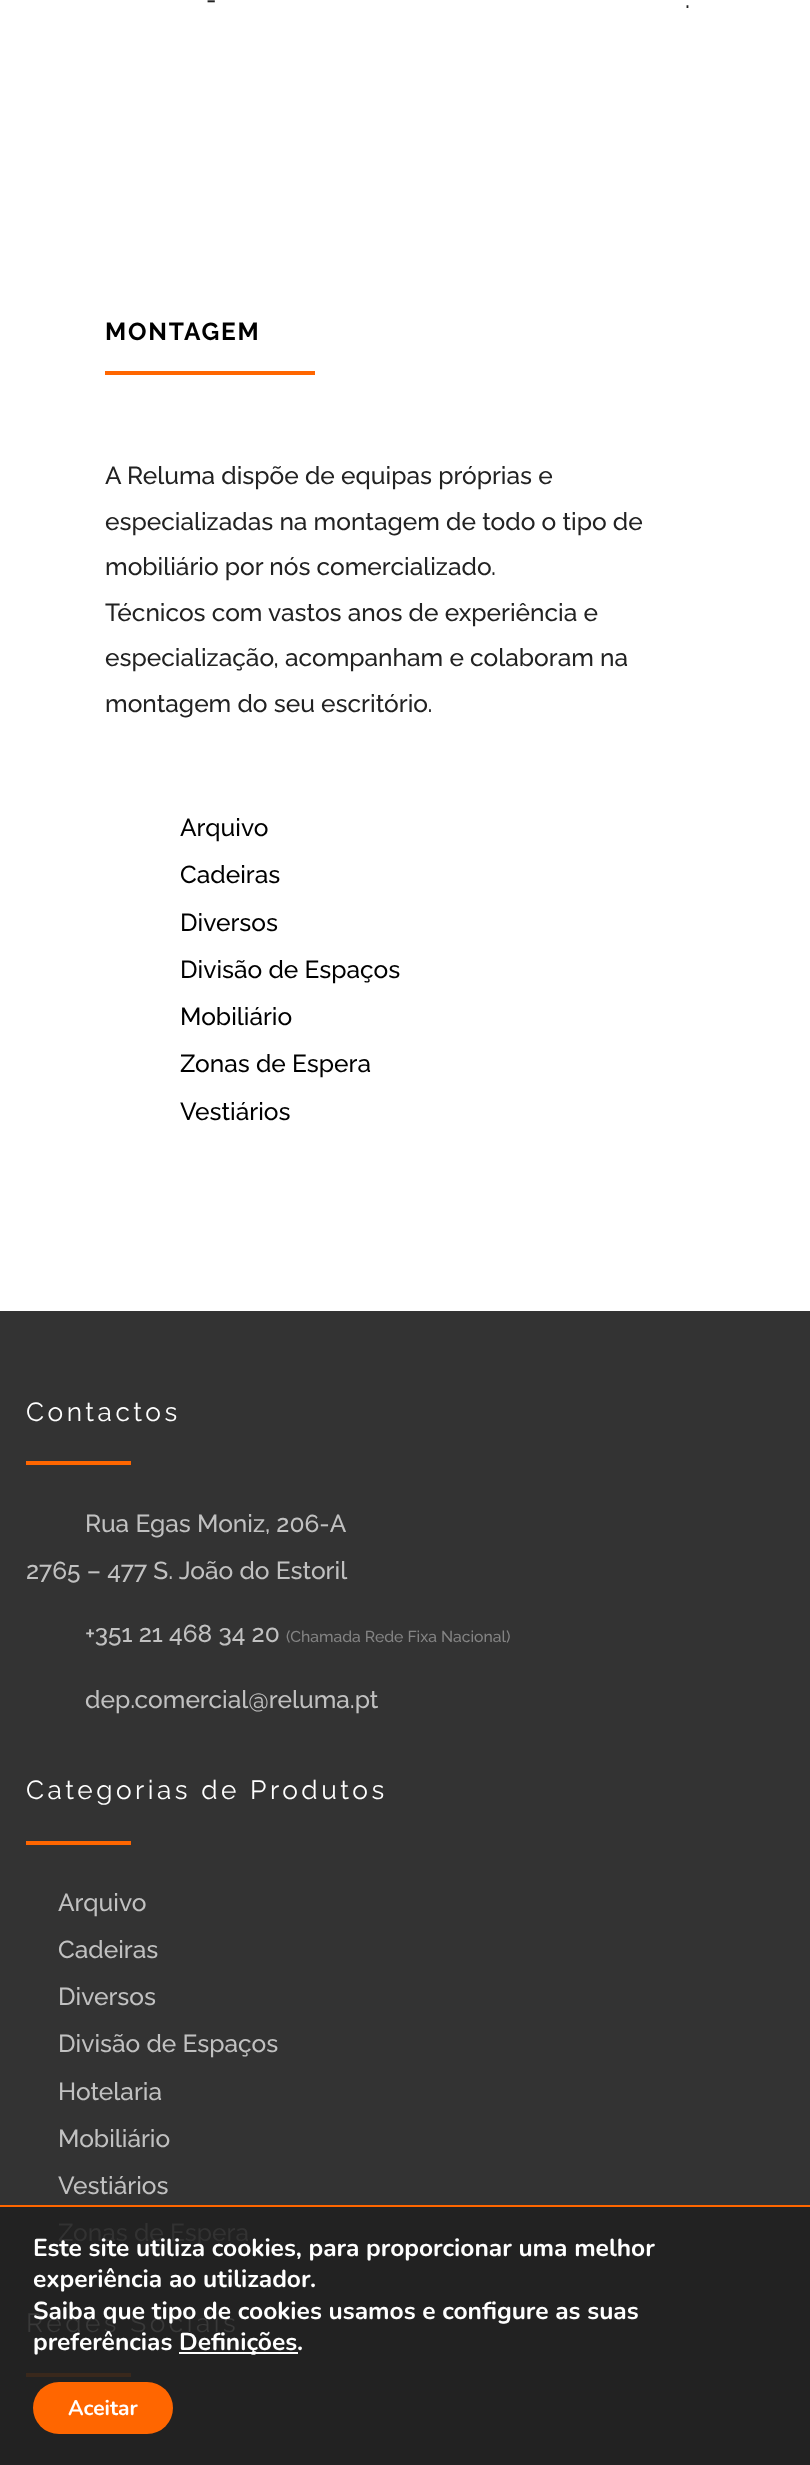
<svg xmlns="http://www.w3.org/2000/svg" xmlns:xlink="http://www.w3.org/1999/xlink" width="810" height="2465" viewBox="0 0 810 2465">
<style>
.cls-1{font:500 24.5px Raleway;fill:#222222}
.cls-2{font:bold 24.5px Raleway;letter-spacing:1.75px;fill:#000000}
.cls-3{font:500 24.5px Raleway;fill:#000000}
.cls-4{font:26.25px Raleway;letter-spacing:3.5px;fill:#ffffff}
.cls-5{font:500 24.5px Raleway;fill:#c1c1c1}
.cls-6{font:500 15.75px Raleway;fill:#848484}
.cls-7{font:500 24.5px Raleway;fill:#323232}
.cls-8{font:26.25px Raleway;letter-spacing:3.5px;fill:#393939}
.cls-9{font:bold 24.5px Nunito;fill:#ffffff}
.cls-10{font:bold 21px Nunito;fill:#ffffff}
</style>
<rect width="100%" height="100%" fill="#ffffff"/>
<rect fill="#ff6600" x="105" y="371" width="210" height="4"/>
<rect fill="#333333" x="0" y="1311" width="810" height="894"/>
<rect fill="#222222" x="0" y="2207" width="810" height="258"/>
<rect fill="#ff6600" x="26" y="1461" width="105" height="4"/>
<rect fill="#ff6600" x="26" y="1841" width="105" height="4"/>
<rect fill="#39281c" x="26" y="2373" width="105" height="4"/>
<rect fill="#ff6600" x="0" y="2205" width="810" height="2"/>
<rect fill="#ffffff" x="179" y="2352" width="119" height="2"/>
<rect fill="#ff6600" x="33" y="2382" width="140" height="52" rx="26"/>
<text class="cls-1" x="206" y="8">-</text>
<text class="cls-1" x="685" y="8">.</text>
<text class="cls-2" x="105" y="340">MONTAGEM</text>
<text class="cls-1"><tspan x="105" y="484">A Reluma dispõe de equipas próprias e</tspan><tspan x="105" y="530">especializadas na montagem de todo o tipo de</tspan><tspan x="105" y="575">mobiliário por nós comercializado.</tspan><tspan x="105" y="621">Técnicos com vastos anos de experiência e</tspan><tspan x="105" y="666">especialização, acompanham e colaboram na</tspan><tspan x="105" y="712">montagem do seu escritório.</tspan></text>
<text class="cls-3"><tspan x="180" y="836">Arquivo</tspan><tspan x="180" y="883">Cadeiras</tspan><tspan x="180" y="931">Diversos</tspan><tspan x="180" y="978">Divisão de Espaços</tspan><tspan x="180" y="1025">Mobiliário</tspan><tspan x="180" y="1072">Zonas de Espera</tspan><tspan x="180" y="1120">Vestiários</tspan></text>
<text class="cls-4" x="26" y="1421">Contactos</text>
<text class="cls-5" x="85" y="1532">Rua Egas Moniz, 206-A</text>
<text class="cls-5" x="26" y="1579">2765 – 477 S. João do Estoril</text>
<text class="cls-5" x="85" y="1642">+351 21 468 34 20</text>
<text class="cls-6" x="286" y="1642">(Chamada Rede Fixa Nacional)</text>
<text class="cls-5" x="85" y="1708">dep.comercial@reluma.pt</text>
<text class="cls-4" x="26" y="1799">Categorias de Produtos</text>
<text class="cls-5"><tspan x="58" y="1911">Arquivo</tspan><tspan x="58" y="1958">Cadeiras</tspan><tspan x="58" y="2005">Diversos</tspan><tspan x="58" y="2052">Divisão de Espaços</tspan><tspan x="58" y="2100">Hotelaria</tspan><tspan x="58" y="2147">Mobiliário</tspan><tspan x="58" y="2194">Vestiários</tspan></text>
<text class="cls-7" x="58" y="2241">Zonas de Espera</text>
<text class="cls-8" x="26" y="2332">Redes Sociais</text>
<text class="cls-9"><tspan x="33" y="2256">Este site utiliza cookies, para proporcionar uma melhor</tspan><tspan x="33" y="2287">experiência ao utilizador.</tspan><tspan x="33" y="2319">Saiba que tipo de cookies usamos e configure as suas</tspan><tspan x="33" y="2350">preferências</tspan></text>
<text class="cls-9" x="179" y="2350">Definições.</text>
<text class="cls-10" x="68" y="2415">Aceitar</text>
</svg>
